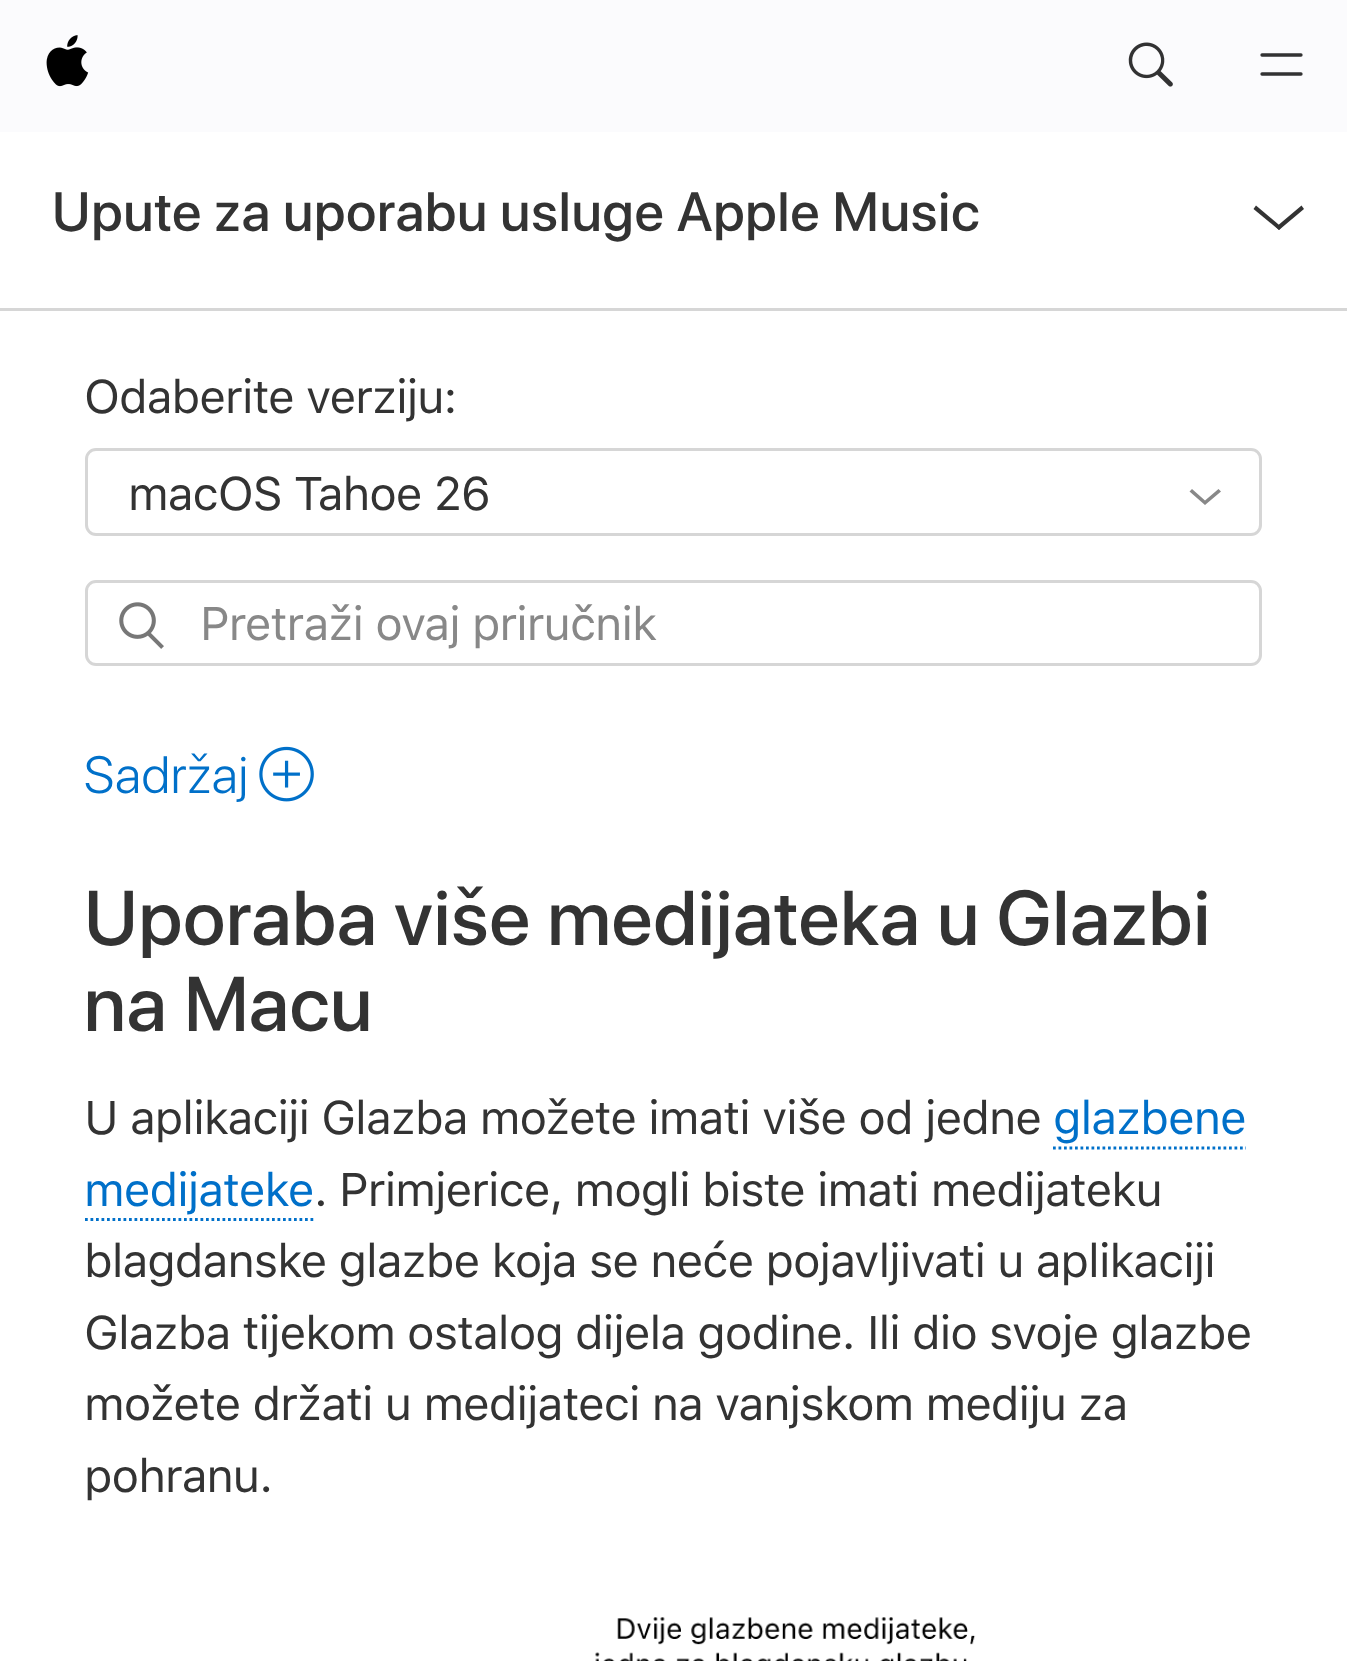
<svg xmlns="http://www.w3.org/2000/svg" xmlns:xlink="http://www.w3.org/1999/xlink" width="1347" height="1661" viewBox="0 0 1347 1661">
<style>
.cls-1{font:500 55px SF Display;letter-spacing:0.95px;fill:#333333}
.cls-2{font:46.75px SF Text;letter-spacing:-0.98px;fill:#333333}
.cls-3{font:46.75px SF Text;letter-spacing:-0.98px;fill:#888888}
.cls-4{font:300 52px SF Display;letter-spacing:0.95px;fill:#0070c9}
.cls-5{font:500 77px SF Display;letter-spacing:0.9px;fill:#333333}
.cls-6{font:46.75px SF Text;letter-spacing:-0.98px;fill:#0070c9}
</style>
<rect width="100%" height="100%" fill="#ffffff"/>
<rect fill="#fbfbfd" x="0" y="0" width="1347" height="132"/>
<image xlink:href="image0.png" x="46" y="35" width="43" height="52"/>
<image xlink:href="image1.png" x="1128" y="42" width="45" height="45"/>
<path fill="none" stroke="#323233" stroke-width="3.3" stroke-linecap="round" stroke-linejoin="round" d="M1262 74H1301M1262 55H1301"/>
<path fill="#333333" d="M1256 205.5L1281.5 227L1279 230L1253.5 209Z"/>
<path fill="#333333" d="M1276 227L1301.5 205.5L1304 209L1279 230Z"/>
<rect fill="#d6d6d6" x="0" y="308" width="1347" height="3"/>
<rect fill="none" stroke="#d6d6d6" stroke-width="3" x="86.5" y="449.5" width="1174" height="85" rx="9.5"/>
<path fill="#888888" d="M1192 489L1189.5 491.5L1205 505L1221 491.5L1218.5 489L1205 500.5Z"/>
<rect fill="none" stroke="#d6d6d6" stroke-width="3" x="86.5" y="581.5" width="1174" height="83" rx="9.5"/>
<image xlink:href="image2.png" x="119" y="602" width="45" height="47"/>
<image xlink:href="image3.png" x="259" y="746" width="55" height="56"/>
<path fill="none" stroke="#0070c9" stroke-width="2.8" stroke-dasharray="2.75 2.75" d="M1053 1148H1246"/>
<path fill="none" stroke="#0070c9" stroke-width="2.8" stroke-dasharray="2.75 2.75" d="M85 1219.5H313.5"/>
<image xlink:href="image4.png" x="595" y="1617" width="381" height="44"/>
<text class="cls-1" x="52" y="231">Upute za uporabu usluge Apple Music</text>
<text class="cls-2" x="84" y="413">Odaberite verziju:</text>
<text class="cls-2" x="128" y="510">macOS Tahoe 26</text>
<text class="cls-3" x="200" y="640">Pretraži ovaj priručnik</text>
<text class="cls-4" x="84" y="793">Sadržaj</text>
<text class="cls-5"><tspan x="84" y="945">Uporaba više medijateka u Glazbi</tspan><tspan x="84" y="1031">na Macu</tspan></text>
<text class="cls-2" x="84" y="1134">U aplikaciji Glazba možete imati više od jedne</text>
<text class="cls-6" x="1053" y="1134">glazbene</text>
<text class="cls-6" x="84" y="1206">medijateke</text>
<text class="cls-2" x="314" y="1206">. Primjerice, mogli biste imati medijateku</text>
<text class="cls-2"><tspan x="84" y="1277">blagdanske glazbe koja se neće pojavljivati u aplikaciji</tspan><tspan x="84" y="1349">Glazba tijekom ostalog dijela godine. Ili dio svoje glazbe</tspan><tspan x="84" y="1420">možete držati u medijateci na vanjskom mediju za</tspan><tspan x="84" y="1492">pohranu.</tspan></text>
</svg>
